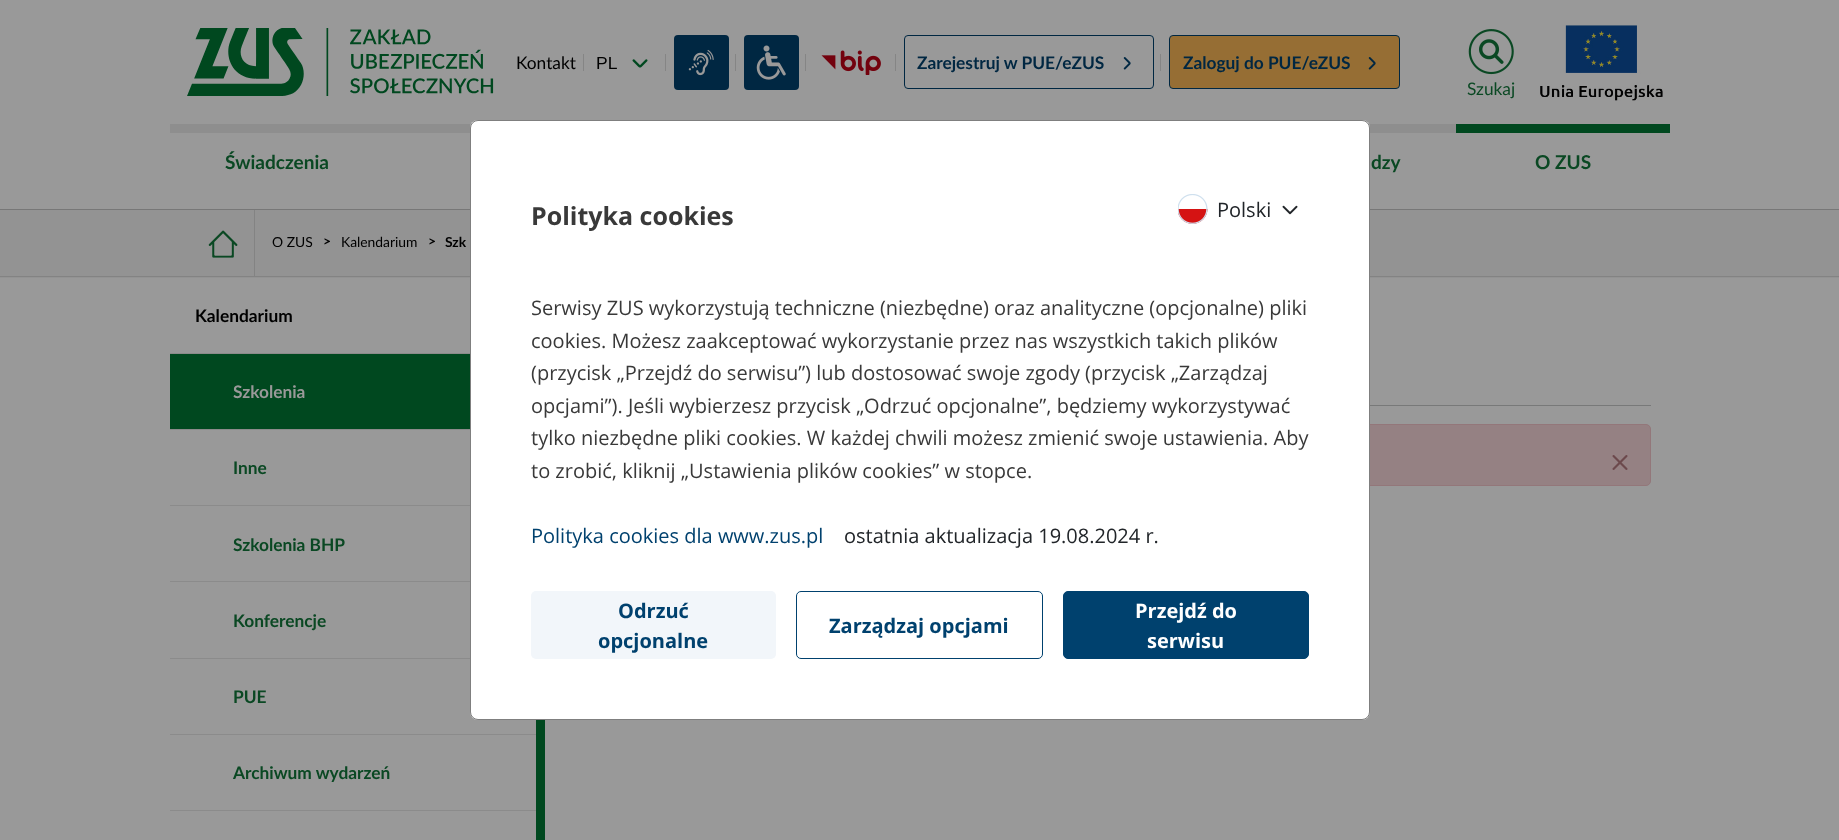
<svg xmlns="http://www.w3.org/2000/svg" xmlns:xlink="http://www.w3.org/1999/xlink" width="1839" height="840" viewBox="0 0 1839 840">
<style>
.cls-1{font:17.5px Lato;fill:#000000}
.cls-2{font:17.5px Liberation Sans;fill:#000000}
.cls-3{font:bold 17.5px Lato;fill:#002742}
.cls-4{font:17.5px Lato;fill:#0a4823}
.cls-5{font:bold 19.25px Lato;fill:#0a4823}
.cls-6{font:14px Lato;fill:#000000}
.cls-7{font:bold 14px Lato;fill:#000000}
.cls-8{font:bold 17.5px Lato;fill:#000000}
.cls-9{font:bold 17.5px Lato;fill:#999999}
.cls-10{font:bold 17.5px Lato;fill:#0a4823}
.cls-11{font:bold 25px Open Sans;fill:#393939}
.cls-12{font:20px Open Sans;fill:#212529}
.cls-13{font:20px Open Sans;fill:#393939}
.cls-14{font:20px Open Sans;fill:#00416e}
.cls-15{font:bold 20px Open Sans;fill:#00416e}
.cls-16{font:bold 20px Open Sans;fill:#ffffff}
</style>
<rect width="100%" height="100%" fill="#999999"/>
<image xlink:href="image0.png" x="187" y="28" width="307" height="68"/>
<rect fill="#858585" x="583" y="54" width="1" height="17"/>
<image xlink:href="image1.png" x="632" y="59" width="16" height="9"/>
<rect fill="#858585" x="665" y="54" width="1" height="17"/>
<rect fill="#002742" x="674" y="35" width="55" height="55" rx="4"/>
<image xlink:href="image2.png" x="688" y="49" width="26" height="27"/>
<rect fill="#858585" x="735" y="54" width="1" height="17"/>
<rect fill="#002742" x="744" y="35" width="55" height="55" rx="4"/>
<image xlink:href="image3.png" x="756" y="45" width="30" height="35"/>
<rect fill="#858585" x="805" y="54" width="1" height="17"/>
<image xlink:href="image4.png" x="821" y="50" width="60" height="25"/>
<rect fill="#858585" x="895" y="54" width="1" height="17"/>
<rect fill="none" stroke="#002742" x="904.5" y="35.5" width="249" height="53" rx="3.5"/>
<image xlink:href="image5.png" x="1123" y="57" width="8" height="13"/>
<rect fill="#858585" x="1160" y="54" width="1" height="17"/>
<rect fill="#966e34" stroke="#002742" x="1169.5" y="35.5" width="230" height="53" rx="3.5"/>
<image xlink:href="image6.png" x="1368" y="57" width="8" height="13"/>
<image xlink:href="image7.png" x="1468" y="29" width="46" height="46"/>
<image xlink:href="image8.png" x="1540" y="25" width="123" height="76"/>
<rect fill="#8e8e8e" x="170" y="124" width="302" height="9"/>
<rect fill="#8e8e8e" x="1368" y="124" width="88" height="9"/>
<rect fill="#00481f" x="1456" y="124" width="214" height="9"/>
<rect fill="#939393" x="0" y="210" width="1839" height="68"/>
<rect fill="#838383" x="254" y="209" width="1" height="67"/>
<rect fill="#777777" x="0" y="209" width="1839" height="1"/>
<rect fill="#838383" x="0" y="276" width="1839" height="1"/>
<image xlink:href="image9.png" x="208" y="230" width="30" height="28"/>
<rect fill="#00481f" x="536" y="720" width="9" height="120"/>
<rect fill="#8b8b8b" x="170" y="353" width="300" height="1"/>
<rect fill="#00481f" x="170" y="354" width="300" height="75"/>
<rect fill="#8b8b8b" x="170" y="429" width="300" height="1"/>
<rect fill="#8b8b8b" x="170" y="505" width="300" height="1"/>
<rect fill="#8b8b8b" x="170" y="581" width="300" height="1"/>
<rect fill="#8b8b8b" x="170" y="658" width="300" height="1"/>
<rect fill="#8b8b8b" x="170" y="734" width="366" height="1"/>
<rect fill="#8b8b8b" x="170" y="810" width="366" height="1"/>
<rect fill="#787979" x="1370" y="405" width="281" height="1"/>
<rect fill="#958183" stroke="#93777a" x="608.5" y="424.5" width="1042" height="61" rx="4.5"/>
<image xlink:href="image10.png" x="1612" y="455" width="16" height="15"/>
<rect fill="#ffffff" x="470" y="120" width="900" height="600" rx="8"/>
<rect fill="none" stroke="#000000" stroke-opacity="0.5" x="470.5" y="120.5" width="899" height="599" rx="7.5"/>
<image xlink:href="image11.png" x="1178" y="194" width="30" height="30"/>
<image xlink:href="image12.png" x="1282" y="205" width="16" height="10"/>
<rect fill="#f2f6fa" x="531" y="591" width="245" height="68" rx="5"/>
<rect fill="none" stroke="#00416e" x="796.5" y="591.5" width="246" height="67" rx="4.5"/>
<rect fill="#00416e" stroke="#00416e" x="1063.5" y="591.5" width="245" height="67" rx="4.5"/>
<text class="cls-1" x="516" y="69">Kontakt</text>
<text class="cls-2" x="596" y="69">PL</text>
<text class="cls-3" x="917" y="69">Zarejestruj w PUE/eZUS</text>
<text class="cls-3" x="1183" y="69">Zaloguj do PUE/eZUS</text>
<text class="cls-4" x="1467" y="95">Szukaj</text>
<text class="cls-5" x="225" y="169">Świadczenia</text>
<text class="cls-5" x="1371" y="169">dzy</text>
<text class="cls-5" x="1535" y="169">O ZUS</text>
<text class="cls-6" x="272" y="247">O ZUS</text>
<text class="cls-7" x="323" y="246">&gt;</text>
<text class="cls-6" x="341" y="247">Kalendarium</text>
<text class="cls-7" x="428" y="246">&gt;</text>
<text class="cls-7" x="445" y="247">Szk</text>
<text class="cls-8" x="195" y="322">Kalendarium</text>
<text class="cls-9" x="233" y="398">Szkolenia</text>
<text class="cls-10" x="233" y="474">Inne</text>
<text class="cls-10" x="233" y="551">Szkolenia BHP</text>
<text class="cls-10" x="233" y="627">Konferencje</text>
<text class="cls-10" x="233" y="703">PUE</text>
<text class="cls-10" x="233" y="779">Archiwum wydarzeń</text>
<text class="cls-11" x="531" y="225">Polityka cookies</text>
<text class="cls-12" x="1217" y="217">Polski</text>
<text class="cls-13"><tspan x="531" y="315">Serwisy ZUS wykorzystują techniczne (niezbędne) oraz analityczne (opcjonalne) pliki</tspan><tspan x="531" y="348">cookies. Możesz zaakceptować wykorzystanie przez nas wszystkich takich plików</tspan><tspan x="531" y="380">(przycisk „Przejdź do serwisu”) lub dostosować swoje zgody (przycisk „Zarządzaj</tspan><tspan x="531" y="413">opcjami”). Jeśli wybierzesz przycisk „Odrzuć opcjonalne”, będziemy wykorzystywać</tspan><tspan x="531" y="445">tylko niezbędne pliki cookies. W każdej chwili możesz zmienić swoje ustawienia. Aby</tspan><tspan x="531" y="478">to zrobić, kliknij „Ustawienia plików cookies” w stopce.</tspan></text>
<text class="cls-14" x="531" y="543">Polityka cookies dla www.zus.pl</text>
<text class="cls-12" x="844" y="543">ostatnia aktualizacja 19.08.2024 r.</text>
<text class="cls-15" x="618" y="618">Odrzuć</text>
<text class="cls-15" x="598" y="648">opcjonalne</text>
<text class="cls-15" x="829" y="633">Zarządzaj opcjami</text>
<text class="cls-16" x="1135" y="618">Przejdź do</text>
<text class="cls-16" x="1147" y="648">serwisu</text>
</svg>
